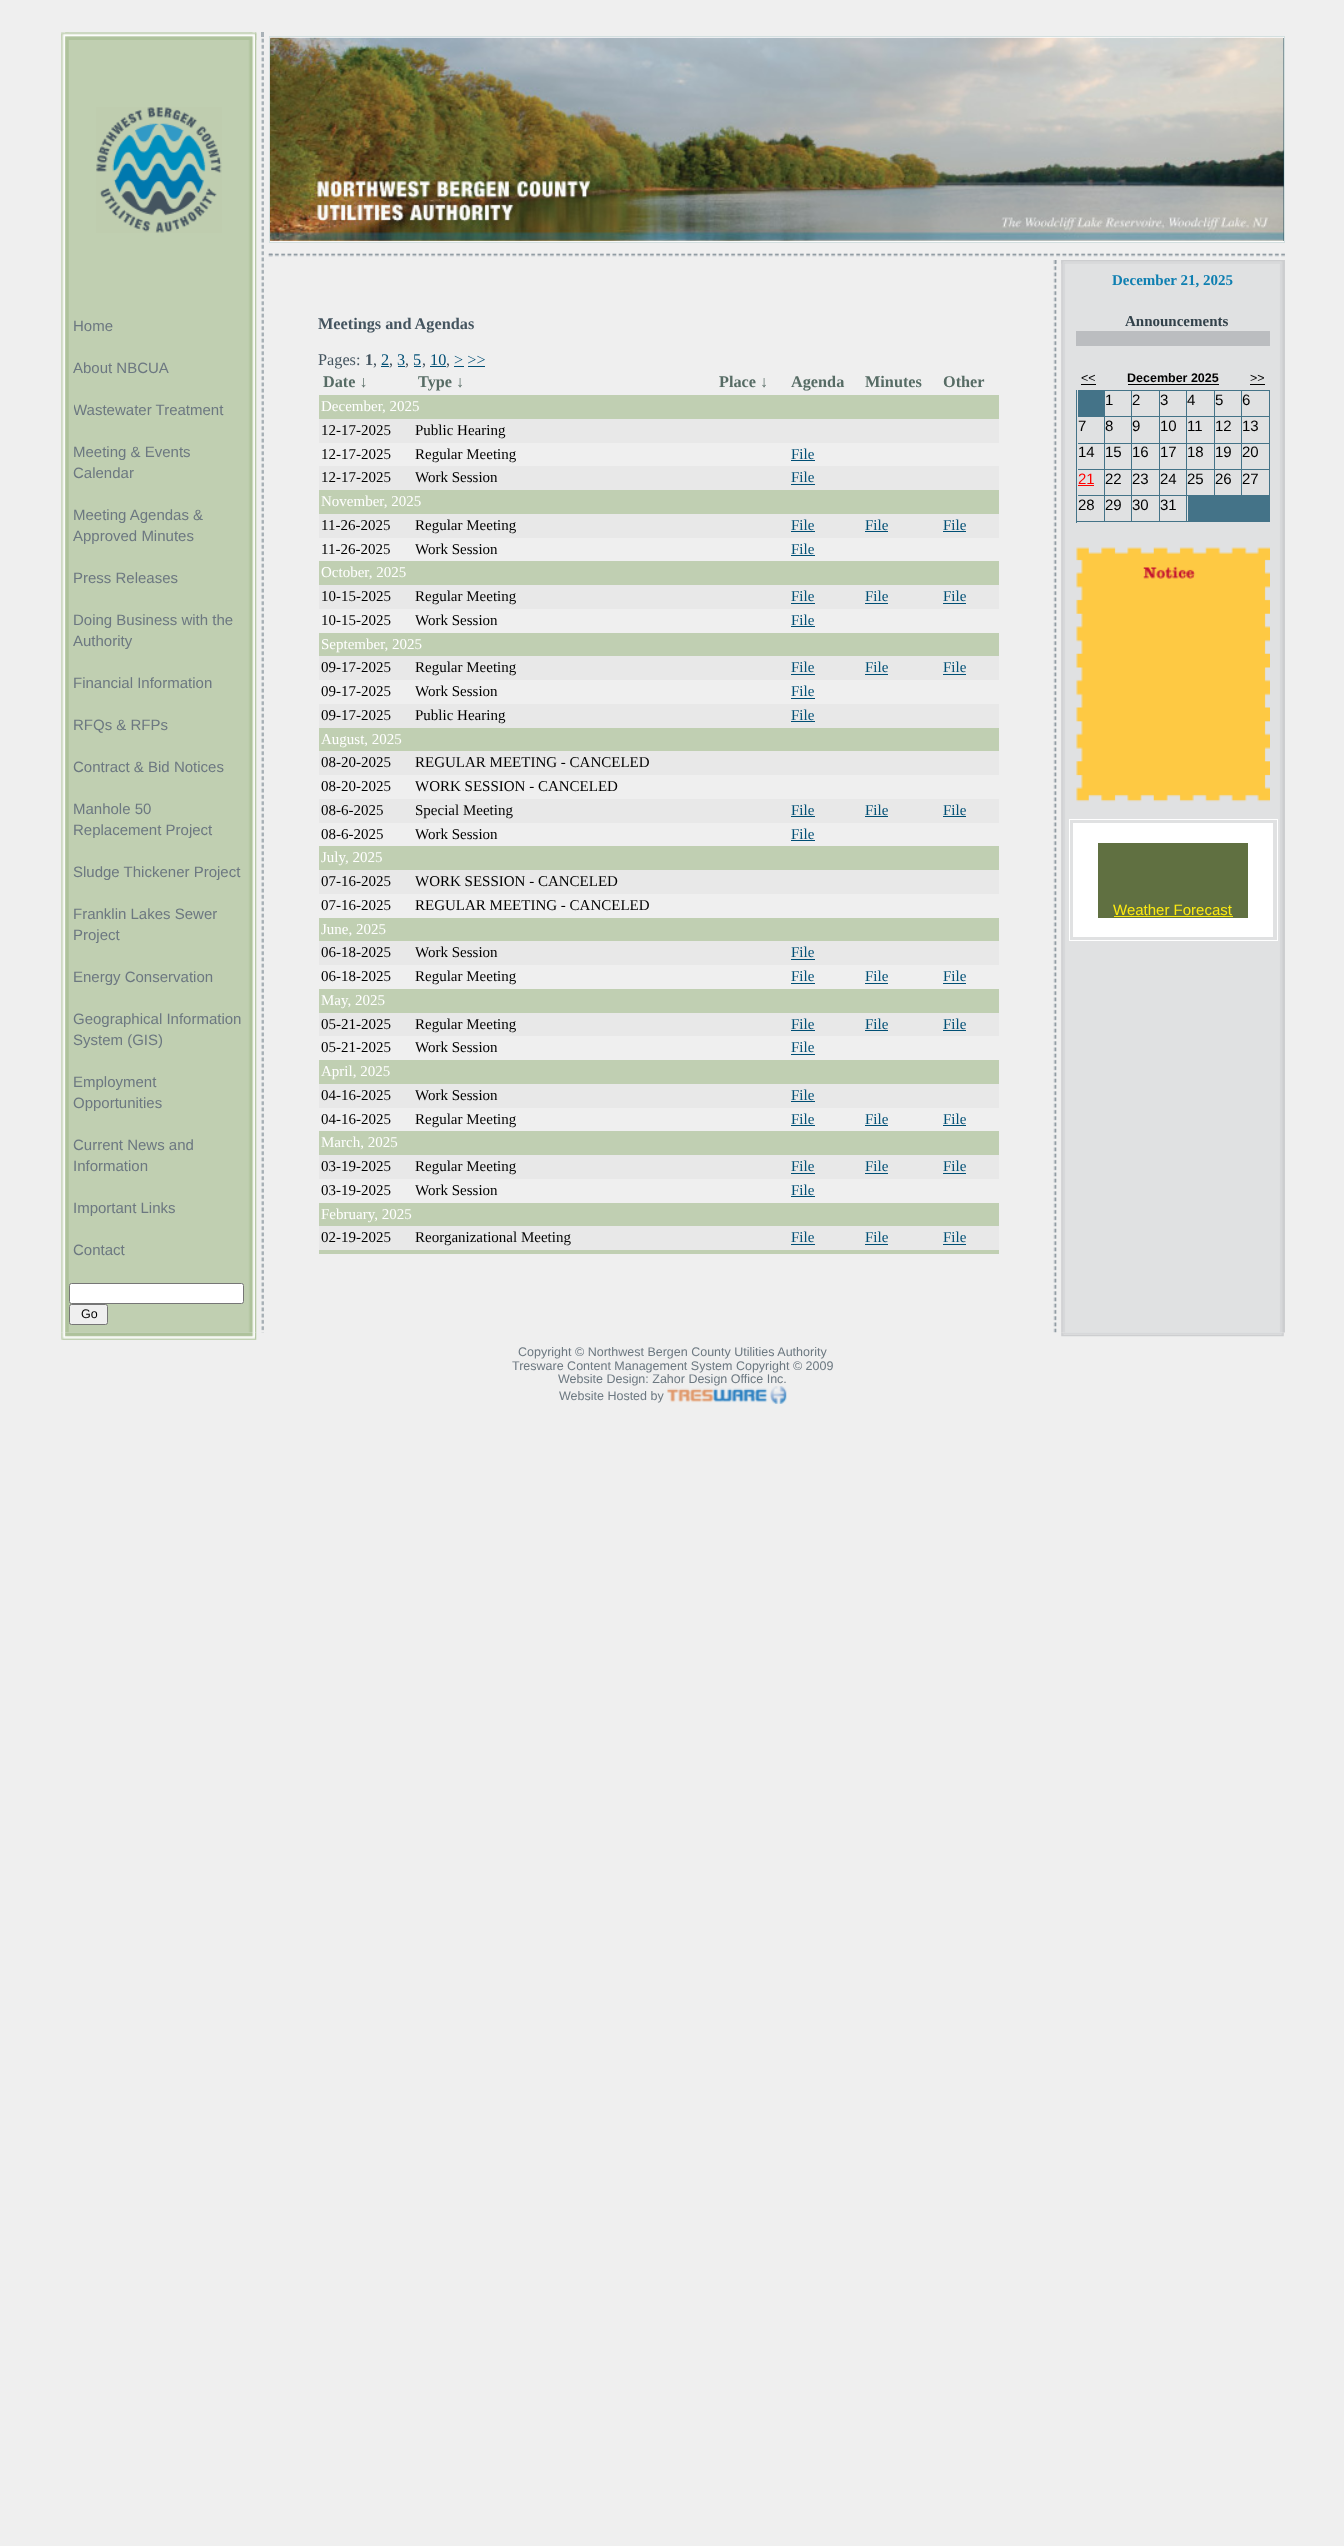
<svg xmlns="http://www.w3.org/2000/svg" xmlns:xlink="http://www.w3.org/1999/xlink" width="1344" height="2546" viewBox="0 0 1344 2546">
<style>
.cls-1{font:15px Liberation Sans;fill:#6c7881}
.cls-2{font:12.5px Liberation Sans;fill:#000000}
.cls-3{font:bold 16.25px Liberation Serif;fill:#455560}
.cls-4{font:16.25px Liberation Serif;fill:#455560}
.cls-5{font:16.25px Liberation Serif;fill:#004f75}
.cls-6{font:bold 16.25px Liberation Serif;fill:#576c65}
.cls-7{font:15px Liberation Serif;fill:#ffffff}
.cls-8{font:15px Liberation Serif;fill:#000000}
.cls-9{font:15px Liberation Serif;fill:#004f75}
.cls-10{font:bold 15px Liberation Serif;fill:#0e7fb1}
.cls-11{font:bold 15px Liberation Serif;fill:#33424b}
.cls-12{font:bold 12.5px Liberation Sans;fill:#000000}
.cls-13{font:15px Liberation Sans;fill:#000000}
.cls-14{font:15px Liberation Sans;fill:#ff0000}
.cls-15{font:15px Liberation Sans;fill:#fdea11}
.cls-16{font:12.5px Liberation Sans;fill:#6c7881}
</style>
<defs>
<clipPath id="clip1"><rect x="74" y="400" width="170" height="21"/></clipPath>
</defs>
<rect width="100%" height="100%" fill="#efefef"/>
<image xlink:href="image0.png" x="268" y="253" width="1017" height="4"/>
<image xlink:href="image1.png" x="268" y="253" width="5" height="4"/>
<image xlink:href="image2.png" x="261" y="38" width="3" height="1295"/>
<rect fill="#a9b1b7" x="261" y="32" width="3" height="5"/>
<rect fill="#ffffff" stroke="#d3dfdf" x="269.5" y="36.5" width="1015" height="206"/>
<rect fill="#20495b" x="270" y="38" width="1014" height="203"/>
<image xlink:href="image3.png" x="270" y="37" width="1014" height="204"/>
<image xlink:href="image4.png" x="270" y="37" width="1014" height="205"/>
<image xlink:href="image5.png" x="61" y="32" width="196" height="1301"/>
<image xlink:href="image6.png" x="61" y="32" width="196" height="8"/>
<image xlink:href="image7.png" x="96" y="107" width="126" height="126"/>
<rect fill="#ffffff" stroke="#767676" x="69.5" y="1283.5" width="174" height="20" rx="2"/>
<rect fill="#efefef" stroke="#767676" x="69.5" y="1304.5" width="38" height="20" rx="2"/>
<rect fill="#004f75" x="381" y="366" width="8" height="1"/>
<rect fill="#004f75" x="398" y="366" width="7" height="1"/>
<rect fill="#004f75" x="414" y="366" width="7" height="1"/>
<rect fill="#004f75" x="430" y="366" width="16" height="1"/>
<rect fill="#004f75" x="454" y="366" width="10" height="1"/>
<rect fill="#004f75" x="468" y="366" width="17" height="1"/>
<rect fill="#c0cfb2" x="319" y="1250" width="680" height="4"/>
<rect fill="#c0cfb2" x="319" y="395" width="680" height="24"/>
<rect fill="#e8e8e8" x="319" y="419" width="680" height="24"/>
<rect fill="#004f75" x="791" y="460" width="24" height="1"/>
<rect fill="#e8e8e8" x="319" y="466" width="680" height="24"/>
<rect fill="#004f75" x="791" y="484" width="24" height="1"/>
<rect fill="#c0cfb2" x="319" y="490" width="680" height="24"/>
<rect fill="#e8e8e8" x="319" y="514" width="680" height="24"/>
<rect fill="#004f75" x="791" y="531" width="24" height="1"/>
<rect fill="#004f75" x="865" y="531" width="23" height="1"/>
<rect fill="#004f75" x="943" y="531" width="23" height="1"/>
<rect fill="#004f75" x="791" y="555" width="24" height="1"/>
<rect fill="#c0cfb2" x="319" y="561" width="680" height="24"/>
<rect fill="#e8e8e8" x="319" y="585" width="680" height="24"/>
<rect fill="#004f75" x="791" y="603" width="24" height="1"/>
<rect fill="#004f75" x="865" y="603" width="23" height="1"/>
<rect fill="#004f75" x="943" y="603" width="23" height="1"/>
<rect fill="#004f75" x="791" y="626" width="24" height="1"/>
<rect fill="#c0cfb2" x="319" y="633" width="680" height="23"/>
<rect fill="#e8e8e8" x="319" y="656" width="680" height="24"/>
<rect fill="#004f75" x="791" y="674" width="24" height="1"/>
<rect fill="#004f75" x="865" y="674" width="23" height="1"/>
<rect fill="#004f75" x="943" y="674" width="23" height="1"/>
<rect fill="#004f75" x="791" y="698" width="24" height="1"/>
<rect fill="#e8e8e8" x="319" y="704" width="680" height="24"/>
<rect fill="#004f75" x="791" y="721" width="24" height="1"/>
<rect fill="#c0cfb2" x="319" y="728" width="680" height="23"/>
<rect fill="#e8e8e8" x="319" y="751" width="680" height="24"/>
<rect fill="#e8e8e8" x="319" y="799" width="680" height="24"/>
<rect fill="#004f75" x="791" y="816" width="24" height="1"/>
<rect fill="#004f75" x="865" y="816" width="23" height="1"/>
<rect fill="#004f75" x="943" y="816" width="23" height="1"/>
<rect fill="#004f75" x="791" y="840" width="24" height="1"/>
<rect fill="#c0cfb2" x="319" y="846" width="680" height="24"/>
<rect fill="#e8e8e8" x="319" y="870" width="680" height="24"/>
<rect fill="#c0cfb2" x="319" y="918" width="680" height="23"/>
<rect fill="#e8e8e8" x="319" y="941" width="680" height="24"/>
<rect fill="#004f75" x="791" y="959" width="24" height="1"/>
<rect fill="#004f75" x="791" y="983" width="24" height="1"/>
<rect fill="#004f75" x="865" y="983" width="23" height="1"/>
<rect fill="#004f75" x="943" y="983" width="23" height="1"/>
<rect fill="#c0cfb2" x="319" y="989" width="680" height="24"/>
<rect fill="#e8e8e8" x="319" y="1013" width="680" height="23"/>
<rect fill="#004f75" x="791" y="1030" width="24" height="1"/>
<rect fill="#004f75" x="865" y="1030" width="23" height="1"/>
<rect fill="#004f75" x="943" y="1030" width="23" height="1"/>
<rect fill="#004f75" x="791" y="1054" width="24" height="1"/>
<rect fill="#c0cfb2" x="319" y="1060" width="680" height="24"/>
<rect fill="#e8e8e8" x="319" y="1084" width="680" height="24"/>
<rect fill="#004f75" x="791" y="1101" width="24" height="1"/>
<rect fill="#004f75" x="791" y="1125" width="24" height="1"/>
<rect fill="#004f75" x="865" y="1125" width="23" height="1"/>
<rect fill="#004f75" x="943" y="1125" width="23" height="1"/>
<rect fill="#c0cfb2" x="319" y="1131" width="680" height="24"/>
<rect fill="#e8e8e8" x="319" y="1155" width="680" height="24"/>
<rect fill="#004f75" x="791" y="1173" width="24" height="1"/>
<rect fill="#004f75" x="865" y="1173" width="23" height="1"/>
<rect fill="#004f75" x="943" y="1173" width="23" height="1"/>
<rect fill="#004f75" x="791" y="1196" width="24" height="1"/>
<rect fill="#c0cfb2" x="319" y="1203" width="680" height="23"/>
<rect fill="#e8e8e8" x="319" y="1226" width="680" height="24"/>
<rect fill="#004f75" x="791" y="1244" width="24" height="1"/>
<rect fill="#004f75" x="865" y="1244" width="23" height="1"/>
<rect fill="#004f75" x="943" y="1244" width="23" height="1"/>
<image xlink:href="image8.png" x="1053" y="260" width="4" height="1073"/>
<image xlink:href="image9.png" x="1053" y="260" width="4" height="4"/>
<image xlink:href="image10.png" x="1061" y="260" width="224" height="1073"/>
<image xlink:href="image11.png" x="1061" y="260" width="222" height="4"/>
<rect fill="#bbbdc0" x="1076" y="331" width="194" height="15"/>
<rect fill="#000000" x="1081" y="384" width="15" height="1"/>
<rect fill="#000000" x="1128" y="384" width="91" height="1"/>
<rect fill="#000000" x="1250" y="384" width="15" height="1"/>
<rect fill="#447388" x="1076" y="521" width="194" height="1"/>
<rect fill="#447388" x="1076" y="390" width="1" height="133"/>
<rect fill="#447388" x="1078" y="390" width="27" height="27"/>
<rect fill="#447388" x="1105" y="390" width="165" height="1"/>
<rect fill="#447388" x="1131" y="390" width="1" height="26"/>
<rect fill="#447388" x="1159" y="390" width="1" height="26"/>
<rect fill="#447388" x="1186" y="390" width="1" height="26"/>
<rect fill="#447388" x="1214" y="390" width="1" height="26"/>
<rect fill="#447388" x="1241" y="390" width="1" height="26"/>
<rect fill="#447388" x="1269" y="390" width="1" height="26"/>
<rect fill="#447388" x="1104" y="416" width="1" height="27"/>
<rect fill="#447388" x="1105" y="416" width="165" height="1"/>
<rect fill="#447388" x="1131" y="416" width="1" height="27"/>
<rect fill="#447388" x="1159" y="416" width="1" height="27"/>
<rect fill="#447388" x="1186" y="416" width="1" height="27"/>
<rect fill="#447388" x="1214" y="416" width="1" height="27"/>
<rect fill="#447388" x="1241" y="416" width="1" height="27"/>
<rect fill="#447388" x="1269" y="416" width="1" height="27"/>
<rect fill="#447388" x="1078" y="443" width="192" height="1"/>
<rect fill="#447388" x="1104" y="443" width="1" height="26"/>
<rect fill="#447388" x="1131" y="443" width="1" height="26"/>
<rect fill="#447388" x="1159" y="443" width="1" height="26"/>
<rect fill="#447388" x="1186" y="443" width="1" height="26"/>
<rect fill="#447388" x="1214" y="443" width="1" height="26"/>
<rect fill="#447388" x="1241" y="443" width="1" height="26"/>
<rect fill="#447388" x="1269" y="443" width="1" height="26"/>
<rect fill="#447388" x="1078" y="469" width="192" height="1"/>
<rect fill="#447388" x="1104" y="469" width="1" height="26"/>
<rect fill="#ff0000" x="1078" y="485" width="16" height="1"/>
<rect fill="#447388" x="1131" y="469" width="1" height="26"/>
<rect fill="#447388" x="1159" y="469" width="1" height="26"/>
<rect fill="#447388" x="1186" y="469" width="1" height="26"/>
<rect fill="#447388" x="1214" y="469" width="1" height="26"/>
<rect fill="#447388" x="1241" y="469" width="1" height="26"/>
<rect fill="#447388" x="1269" y="469" width="1" height="26"/>
<rect fill="#447388" x="1078" y="495" width="110" height="1"/>
<rect fill="#447388" x="1104" y="495" width="1" height="26"/>
<rect fill="#447388" x="1131" y="495" width="1" height="26"/>
<rect fill="#447388" x="1159" y="495" width="1" height="26"/>
<rect fill="#447388" x="1186" y="495" width="1" height="26"/>
<rect fill="#447388" x="1188" y="495" width="82" height="26"/>
<image xlink:href="image12.png" x="1076" y="547" width="194" height="255"/>
<rect fill="none" stroke="#ffffff" x="1069.5" y="819.5" width="208" height="121"/>
<rect fill="#ffffff" x="1073" y="823" width="200" height="114"/>
<rect fill="#607041" x="1098" y="843" width="150" height="75"/>
<rect fill="#fdea11" x="1114" y="916" width="119" height="1"/>
<image xlink:href="image13.png" x="61" y="1332" width="196" height="8"/>
<image xlink:href="image14.png" x="1061" y="1332" width="223" height="5"/>
<image xlink:href="image15.png" x="667" y="1386" width="120" height="18"/>
<text class="cls-1" x="73" y="331">Home</text>
<text class="cls-1" x="73" y="373">About NBCUA</text>
<g clip-path="url(#clip1)">
<text class="cls-1" x="73" y="415">Wastewater Treatment</text>
</g>
<text class="cls-1"><tspan x="73" y="457">Meeting &amp; Events</tspan><tspan x="73" y="478">Calendar</tspan></text>
<text class="cls-1"><tspan x="73" y="520">Meeting Agendas &amp;</tspan><tspan x="73" y="541">Approved Minutes</tspan></text>
<text class="cls-1" x="73" y="583">Press Releases</text>
<text class="cls-1"><tspan x="73" y="625">Doing Business with the</tspan><tspan x="73" y="646">Authority</tspan></text>
<text class="cls-1" x="73" y="688">Financial Information</text>
<text class="cls-1" x="73" y="730">RFQs &amp; RFPs</text>
<text class="cls-1" x="73" y="772">Contract &amp; Bid Notices</text>
<text class="cls-1"><tspan x="73" y="814">Manhole 50</tspan><tspan x="73" y="835">Replacement Project</tspan></text>
<text class="cls-1" x="73" y="877">Sludge Thickener Project</text>
<text class="cls-1"><tspan x="73" y="919">Franklin Lakes Sewer</tspan><tspan x="73" y="940">Project</tspan></text>
<text class="cls-1" x="73" y="982">Energy Conservation</text>
<text class="cls-1"><tspan x="73" y="1024">Geographical Information</tspan><tspan x="73" y="1045">System (GIS)</tspan></text>
<text class="cls-1"><tspan x="73" y="1087">Employment</tspan><tspan x="73" y="1108">Opportunities</tspan></text>
<text class="cls-1"><tspan x="73" y="1150">Current News and</tspan><tspan x="73" y="1171">Information</tspan></text>
<text class="cls-1" x="73" y="1213">Important Links</text>
<text class="cls-1" x="73" y="1255">Contact</text>
<text class="cls-2" x="81" y="1318">Go</text>
<text class="cls-3" x="318" y="329">Meetings and Agendas</text>
<text class="cls-4" x="318" y="365">Pages:</text>
<text class="cls-3" x="365" y="365">1</text>
<text class="cls-5" x="381" y="365">2</text>
<text class="cls-5" x="397" y="365">3</text>
<text class="cls-5" x="413" y="365">5</text>
<text class="cls-5" x="430" y="365">10</text>
<text class="cls-5" x="454" y="365">&gt; &gt;&gt;</text>
<text class="cls-4" x="373" y="365">,</text>
<text class="cls-4" x="389" y="365">,</text>
<text class="cls-4" x="405" y="365">,</text>
<text class="cls-4" x="422" y="365">,</text>
<text class="cls-4" x="446" y="365">,</text>
<text class="cls-6" x="323" y="387">Date ↓</text>
<text class="cls-6" x="418" y="387">Type ↓</text>
<text class="cls-6" x="719" y="387">Place ↓</text>
<text class="cls-6" x="791" y="387">Agenda</text>
<text class="cls-6" x="865" y="387">Minutes</text>
<text class="cls-6" x="943" y="387">Other</text>
<text class="cls-7" x="321" y="411">December, 2025</text>
<text class="cls-8" x="321" y="435">12-17-2025</text>
<text class="cls-8" x="415" y="435">Public Hearing</text>
<text class="cls-8" x="321" y="459">12-17-2025</text>
<text class="cls-8" x="415" y="459">Regular Meeting</text>
<text class="cls-9" x="791" y="459">File</text>
<text class="cls-8" x="321" y="482">12-17-2025</text>
<text class="cls-8" x="415" y="482">Work Session</text>
<text class="cls-9" x="791" y="482">File</text>
<text class="cls-7" x="321" y="506">November, 2025</text>
<text class="cls-8" x="321" y="530">11-26-2025</text>
<text class="cls-8" x="415" y="530">Regular Meeting</text>
<text class="cls-9" x="791" y="530">File</text>
<text class="cls-9" x="865" y="530">File</text>
<text class="cls-9" x="943" y="530">File</text>
<text class="cls-8" x="321" y="554">11-26-2025</text>
<text class="cls-8" x="415" y="554">Work Session</text>
<text class="cls-9" x="791" y="554">File</text>
<text class="cls-7" x="321" y="577">October, 2025</text>
<text class="cls-8" x="321" y="601">10-15-2025</text>
<text class="cls-8" x="415" y="601">Regular Meeting</text>
<text class="cls-9" x="791" y="601">File</text>
<text class="cls-9" x="865" y="601">File</text>
<text class="cls-9" x="943" y="601">File</text>
<text class="cls-8" x="321" y="625">10-15-2025</text>
<text class="cls-8" x="415" y="625">Work Session</text>
<text class="cls-9" x="791" y="625">File</text>
<text class="cls-7" x="321" y="649">September, 2025</text>
<text class="cls-8" x="321" y="672">09-17-2025</text>
<text class="cls-8" x="415" y="672">Regular Meeting</text>
<text class="cls-9" x="791" y="672">File</text>
<text class="cls-9" x="865" y="672">File</text>
<text class="cls-9" x="943" y="672">File</text>
<text class="cls-8" x="321" y="696">09-17-2025</text>
<text class="cls-8" x="415" y="696">Work Session</text>
<text class="cls-9" x="791" y="696">File</text>
<text class="cls-8" x="321" y="720">09-17-2025</text>
<text class="cls-8" x="415" y="720">Public Hearing</text>
<text class="cls-9" x="791" y="720">File</text>
<text class="cls-7" x="321" y="744">August, 2025</text>
<text class="cls-8" x="321" y="767">08-20-2025</text>
<text class="cls-8" x="415" y="767">REGULAR MEETING - CANCELED</text>
<text class="cls-8" x="321" y="791">08-20-2025</text>
<text class="cls-8" x="415" y="791">WORK SESSION - CANCELED</text>
<text class="cls-8" x="321" y="815">08-6-2025</text>
<text class="cls-8" x="415" y="815">Special Meeting</text>
<text class="cls-9" x="791" y="815">File</text>
<text class="cls-9" x="865" y="815">File</text>
<text class="cls-9" x="943" y="815">File</text>
<text class="cls-8" x="321" y="839">08-6-2025</text>
<text class="cls-8" x="415" y="839">Work Session</text>
<text class="cls-9" x="791" y="839">File</text>
<text class="cls-7" x="321" y="862">July, 2025</text>
<text class="cls-8" x="321" y="886">07-16-2025</text>
<text class="cls-8" x="415" y="886">WORK SESSION - CANCELED</text>
<text class="cls-8" x="321" y="910">07-16-2025</text>
<text class="cls-8" x="415" y="910">REGULAR MEETING - CANCELED</text>
<text class="cls-7" x="321" y="934">June, 2025</text>
<text class="cls-8" x="321" y="957">06-18-2025</text>
<text class="cls-8" x="415" y="957">Work Session</text>
<text class="cls-9" x="791" y="957">File</text>
<text class="cls-8" x="321" y="981">06-18-2025</text>
<text class="cls-8" x="415" y="981">Regular Meeting</text>
<text class="cls-9" x="791" y="981">File</text>
<text class="cls-9" x="865" y="981">File</text>
<text class="cls-9" x="943" y="981">File</text>
<text class="cls-7" x="321" y="1005">May, 2025</text>
<text class="cls-8" x="321" y="1029">05-21-2025</text>
<text class="cls-8" x="415" y="1029">Regular Meeting</text>
<text class="cls-9" x="791" y="1029">File</text>
<text class="cls-9" x="865" y="1029">File</text>
<text class="cls-9" x="943" y="1029">File</text>
<text class="cls-8" x="321" y="1052">05-21-2025</text>
<text class="cls-8" x="415" y="1052">Work Session</text>
<text class="cls-9" x="791" y="1052">File</text>
<text class="cls-7" x="321" y="1076">April, 2025</text>
<text class="cls-8" x="321" y="1100">04-16-2025</text>
<text class="cls-8" x="415" y="1100">Work Session</text>
<text class="cls-9" x="791" y="1100">File</text>
<text class="cls-8" x="321" y="1124">04-16-2025</text>
<text class="cls-8" x="415" y="1124">Regular Meeting</text>
<text class="cls-9" x="791" y="1124">File</text>
<text class="cls-9" x="865" y="1124">File</text>
<text class="cls-9" x="943" y="1124">File</text>
<text class="cls-7" x="321" y="1147">March, 2025</text>
<text class="cls-8" x="321" y="1171">03-19-2025</text>
<text class="cls-8" x="415" y="1171">Regular Meeting</text>
<text class="cls-9" x="791" y="1171">File</text>
<text class="cls-9" x="865" y="1171">File</text>
<text class="cls-9" x="943" y="1171">File</text>
<text class="cls-8" x="321" y="1195">03-19-2025</text>
<text class="cls-8" x="415" y="1195">Work Session</text>
<text class="cls-9" x="791" y="1195">File</text>
<text class="cls-7" x="321" y="1219">February, 2025</text>
<text class="cls-8" x="321" y="1242">02-19-2025</text>
<text class="cls-8" x="415" y="1242">Reorganizational Meeting</text>
<text class="cls-9" x="791" y="1242">File</text>
<text class="cls-9" x="865" y="1242">File</text>
<text class="cls-9" x="943" y="1242">File</text>
<text class="cls-10" x="1112" y="285">December 21, 2025</text>
<text class="cls-11" x="1125" y="326">Announcements</text>
<text class="cls-2" x="1081" y="382">&lt;&lt;</text>
<text class="cls-12" x="1127" y="382">December 2025</text>
<text class="cls-2" x="1250" y="382">&gt;&gt;</text>
<text class="cls-13" x="1105" y="405">1</text>
<text class="cls-13" x="1132" y="405">2</text>
<text class="cls-13" x="1160" y="405">3</text>
<text class="cls-13" x="1187" y="405">4</text>
<text class="cls-13" x="1215" y="405">5</text>
<text class="cls-13" x="1242" y="405">6</text>
<text class="cls-13" x="1078" y="431">7</text>
<text class="cls-13" x="1105" y="431">8</text>
<text class="cls-13" x="1132" y="431">9</text>
<text class="cls-13" x="1160" y="431">10</text>
<text class="cls-13" x="1187" y="431">11</text>
<text class="cls-13" x="1215" y="431">12</text>
<text class="cls-13" x="1242" y="431">13</text>
<text class="cls-13" x="1078" y="457">14</text>
<text class="cls-13" x="1105" y="457">15</text>
<text class="cls-13" x="1132" y="457">16</text>
<text class="cls-13" x="1160" y="457">17</text>
<text class="cls-13" x="1187" y="457">18</text>
<text class="cls-13" x="1215" y="457">19</text>
<text class="cls-13" x="1242" y="457">20</text>
<text class="cls-14" x="1078" y="484">21</text>
<text class="cls-13" x="1105" y="484">22</text>
<text class="cls-13" x="1132" y="484">23</text>
<text class="cls-13" x="1160" y="484">24</text>
<text class="cls-13" x="1187" y="484">25</text>
<text class="cls-13" x="1215" y="484">26</text>
<text class="cls-13" x="1242" y="484">27</text>
<text class="cls-13" x="1078" y="510">28</text>
<text class="cls-13" x="1105" y="510">29</text>
<text class="cls-13" x="1132" y="510">30</text>
<text class="cls-13" x="1160" y="510">31</text>
<text class="cls-15" x="1113" y="915">Weather Forecast</text>
<text class="cls-16" x="518" y="1356">Copyright © Northwest Bergen County Utilities Authority</text>
<text class="cls-16" x="512" y="1370">Tresware Content Management System Copyright © 2009</text>
<text class="cls-16" x="558" y="1383">Website Design: Zahor Design Office Inc.</text>
<text class="cls-16" x="559" y="1400">Website Hosted by</text>
</svg>
